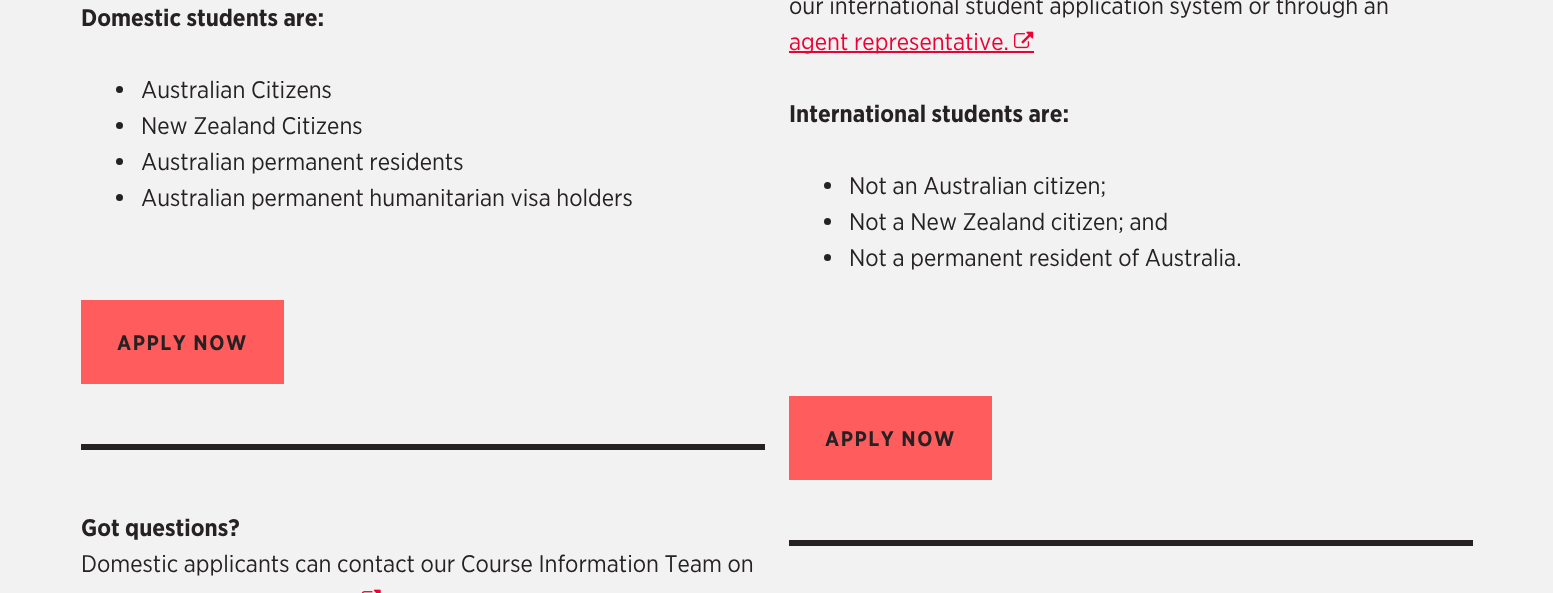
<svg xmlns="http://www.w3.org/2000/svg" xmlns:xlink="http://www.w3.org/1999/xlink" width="1553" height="593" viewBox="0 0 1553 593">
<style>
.cls-1{font:24px 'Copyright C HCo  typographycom';fill:#262223}
.cls-2{font:300 24px 'Copyright C HCo  typographycom';fill:#262223}
.cls-3{font:21px 'Copyright C HCo  typographycom';letter-spacing:1.5px;fill:#262223}
.cls-4{font:300 24px 'Copyright C HCo  typographycom';fill:#ed0033}
</style>
<rect width="100%" height="100%" fill="#f2f2f2"/>
<circle fill="#262223" cx="119.5" cy="89.5" r="3.5"/>
<circle fill="#262223" cx="119.5" cy="125.5" r="3.5"/>
<circle fill="#262223" cx="119.5" cy="161.5" r="3.5"/>
<circle fill="#262223" cx="119.5" cy="197.5" r="3.5"/>
<rect fill="#ff5c5e" x="81" y="300" width="203" height="84"/>
<rect fill="#262223" x="81" y="444" width="684" height="6"/>
<image xlink:href="image0.png" x="361" y="589" width="20" height="4"/>
<rect fill="#ed0033" x="789" y="51" width="245" height="2"/>
<image xlink:href="image1.png" x="1014" y="31" width="20" height="18"/>
<circle fill="#262223" cx="827.5" cy="185.5" r="3.5"/>
<circle fill="#262223" cx="827.5" cy="221.5" r="3.5"/>
<circle fill="#262223" cx="827.5" cy="257.5" r="3.5"/>
<rect fill="#ff5c5e" x="789" y="396" width="203" height="84"/>
<rect fill="#262223" x="789" y="540" width="684" height="6"/>
<text class="cls-1" x="81" y="26">Domestic students are:</text>
<text class="cls-2"><tspan x="141" y="98">Australian Citizens</tspan><tspan x="141" y="134">New Zealand Citizens</tspan><tspan x="141" y="170">Australian permanent residents</tspan><tspan x="141" y="206">Australian permanent humanitarian visa holders</tspan></text>
<text class="cls-3" x="117" y="350">APPLY NOW</text>
<text class="cls-1" x="81" y="536">Got questions?</text>
<text class="cls-2" x="81" y="572">Domestic applicants can contact our Course Information Team on</text>
<text class="cls-2" x="789" y="14">our international student application system or through an</text>
<text class="cls-4" x="789" y="50">agent representative.</text>
<text class="cls-1" x="789" y="122">International students are:</text>
<text class="cls-2"><tspan x="849" y="194">Not an Australian citizen;</tspan><tspan x="849" y="230">Not a New Zealand citizen; and</tspan><tspan x="849" y="266">Not a permanent resident of Australia.</tspan></text>
<text class="cls-3" x="825" y="446">APPLY NOW</text>
</svg>
